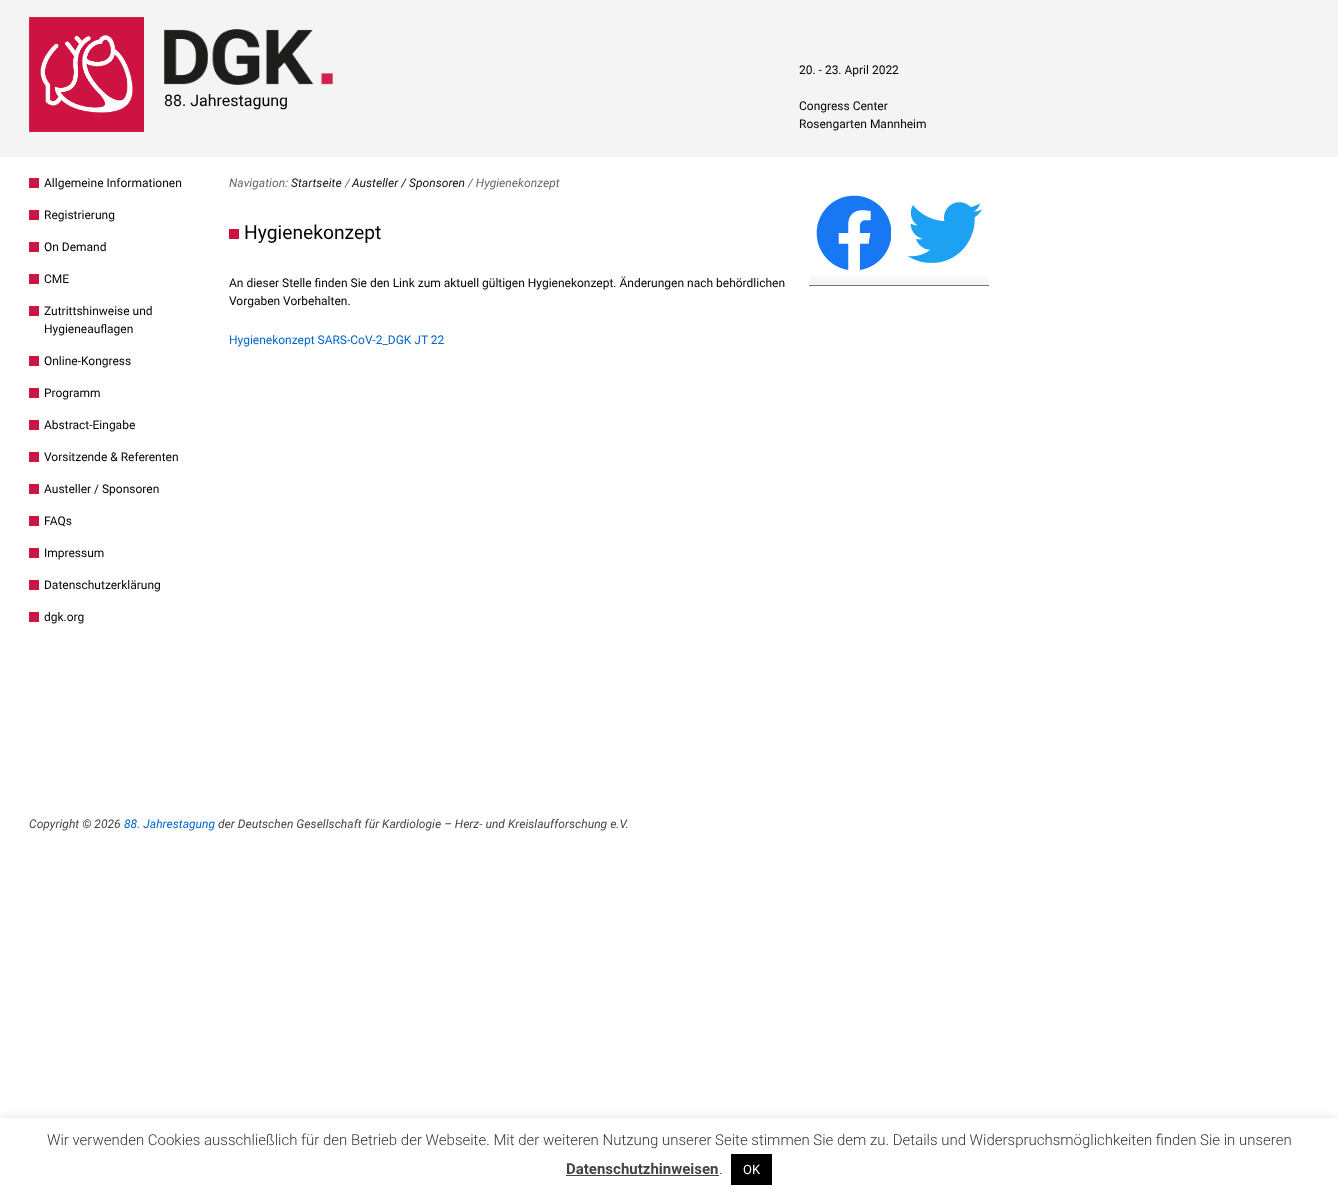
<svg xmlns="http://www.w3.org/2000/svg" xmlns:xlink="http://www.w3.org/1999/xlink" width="1338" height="1197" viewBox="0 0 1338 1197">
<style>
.cls-1{font:16px Roboto;fill:#000000}
.cls-2{font:12px Roboto;fill:#000000}
.cls-3{font:italic 12px Roboto;fill:#666666}
.cls-4{font:italic 12px Roboto;fill:#111111}
.cls-5{font:19.25px Roboto;fill:#000000}
.cls-6{font:12px Roboto;fill:#0066cc}
.cls-7{font:italic 12px Roboto;fill:#444444}
.cls-8{font:italic 12px Roboto;fill:#0066cc}
.cls-9{font:300 15px Roboto;fill:#333333}
.cls-10{font:bold 15px Roboto;fill:#444444}
.cls-11{font:13px Roboto;fill:#ffffff}
</style>
<defs>
<clipPath id="clip1"><rect x="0" y="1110" width="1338" height="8"/></clipPath>
</defs>
<rect width="100%" height="100%" fill="#ffffff"/>
<rect fill="#f4f4f4" x="0" y="0" width="1338" height="157"/>
<image xlink:href="image0.png" x="29" y="17" width="115" height="115"/>
<image xlink:href="image1.png" x="164" y="29" width="169" height="56"/>
<rect fill="#ce1342" x="29" y="178" width="10" height="10"/>
<rect fill="#ce1342" x="29" y="210" width="10" height="10"/>
<rect fill="#ce1342" x="29" y="242" width="10" height="10"/>
<rect fill="#ce1342" x="29" y="274" width="10" height="10"/>
<rect fill="#ce1342" x="29" y="306" width="10" height="10"/>
<rect fill="#ce1342" x="29" y="356" width="10" height="10"/>
<rect fill="#ce1342" x="29" y="388" width="10" height="10"/>
<rect fill="#ce1342" x="29" y="420" width="10" height="10"/>
<rect fill="#ce1342" x="29" y="452" width="10" height="10"/>
<rect fill="#ce1342" x="29" y="484" width="10" height="10"/>
<rect fill="#ce1342" x="29" y="516" width="10" height="10"/>
<rect fill="#ce1342" x="29" y="548" width="10" height="10"/>
<rect fill="#ce1342" x="29" y="580" width="10" height="10"/>
<rect fill="#ce1342" x="29" y="612" width="10" height="10"/>
<rect fill="#ce1342" x="229" y="229" width="10" height="10"/>
<image xlink:href="image2.png" x="809" y="276" width="180" height="9"/>
<rect fill="#777777" x="809" y="285" width="180" height="1"/>
<image xlink:href="image3.png" x="816" y="195" width="75" height="75"/>
<image xlink:href="image4.png" x="908" y="202" width="74" height="61"/>
<g clip-path="url(#clip1)">
<rect fill="#acabab" fill-opacity="0.3" filter="blur(5px)" x="0" y="1117" width="1338" height="79"/>
</g>
<rect fill="#444444" x="566" y="1175" width="153" height="1"/>
<rect fill="#000000" x="731" y="1154" width="41" height="31"/>
<text class="cls-1" x="164" y="106">88. Jahrestagung</text>
<text class="cls-2" x="799" y="74">20. - 23. April 2022</text>
<text class="cls-2"><tspan x="799" y="110">Congress Center</tspan><tspan x="799" y="128">Rosengarten Mannheim</tspan></text>
<text class="cls-2" x="44" y="187">Allgemeine Informationen</text>
<text class="cls-2" x="44" y="219">Registrierung</text>
<text class="cls-2" x="44" y="251">On Demand</text>
<text class="cls-2" x="44" y="283">CME</text>
<text class="cls-2"><tspan x="44" y="315">Zutrittshinweise und</tspan><tspan x="44" y="333">Hygieneauflagen</tspan></text>
<text class="cls-2" x="44" y="365">Online-Kongress</text>
<text class="cls-2" x="44" y="397">Programm</text>
<text class="cls-2" x="44" y="429">Abstract-Eingabe</text>
<text class="cls-2" x="44" y="461">Vorsitzende &amp; Referenten</text>
<text class="cls-2" x="44" y="493">Austeller / Sponsoren</text>
<text class="cls-2" x="44" y="525">FAQs</text>
<text class="cls-2" x="44" y="557">Impressum</text>
<text class="cls-2" x="44" y="589">Datenschutzerklärung</text>
<text class="cls-2" x="44" y="621">dgk.org</text>
<text class="cls-3" x="229" y="187">Navigation:</text>
<text class="cls-4" x="291" y="187">Startseite</text>
<text class="cls-3" x="345" y="187">/</text>
<text class="cls-4" x="352" y="187">Austeller / Sponsoren</text>
<text class="cls-3" x="468" y="187">/ Hygienekonzept</text>
<text class="cls-5" x="244" y="239">Hygienekonzept</text>
<text class="cls-2"><tspan x="229" y="287">An dieser Stelle finden Sie den Link zum aktuell gültigen Hygienekonzept. Änderungen nach behördlichen</tspan><tspan x="229" y="305">Vorgaben Vorbehalten.</tspan></text>
<text class="cls-6" x="229" y="344">Hygienekonzept SARS-CoV-2_DGK JT 22</text>
<text class="cls-7" x="29" y="828">Copyright © 2026</text>
<text class="cls-8" x="124" y="828">88. Jahrestagung</text>
<text class="cls-7" x="218" y="828">der Deutschen Gesellschaft für Kardiologie – Herz- und Kreislaufforschung e.V.</text>
<text class="cls-9" x="47" y="1145">Wir verwenden Cookies ausschließlich für den Betrieb der Webseite. Mit der weiteren Nutzung unserer Seite stimmen Sie dem zu. Details und Widerspruchsmöglichkeiten finden Sie in unseren</text>
<text class="cls-10" x="566" y="1174">Datenschutzhinweisen</text>
<text class="cls-9" x="719" y="1174">.</text>
<text class="cls-11" x="743" y="1174">OK</text>
</svg>
